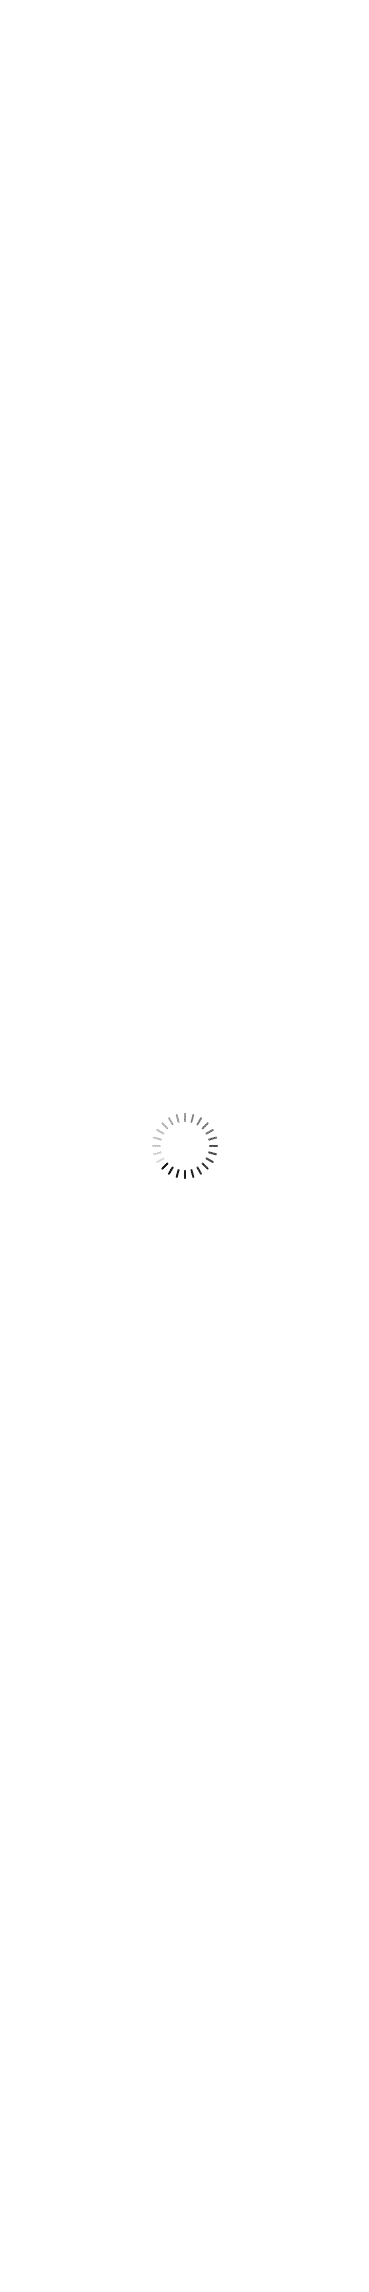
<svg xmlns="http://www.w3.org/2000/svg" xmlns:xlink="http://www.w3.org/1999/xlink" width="369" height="2292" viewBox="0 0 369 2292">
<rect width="100%" height="100%" fill="#ffffff"/>
<image xlink:href="image0.png" x="152" y="1113" width="66" height="66"/>
</svg>
